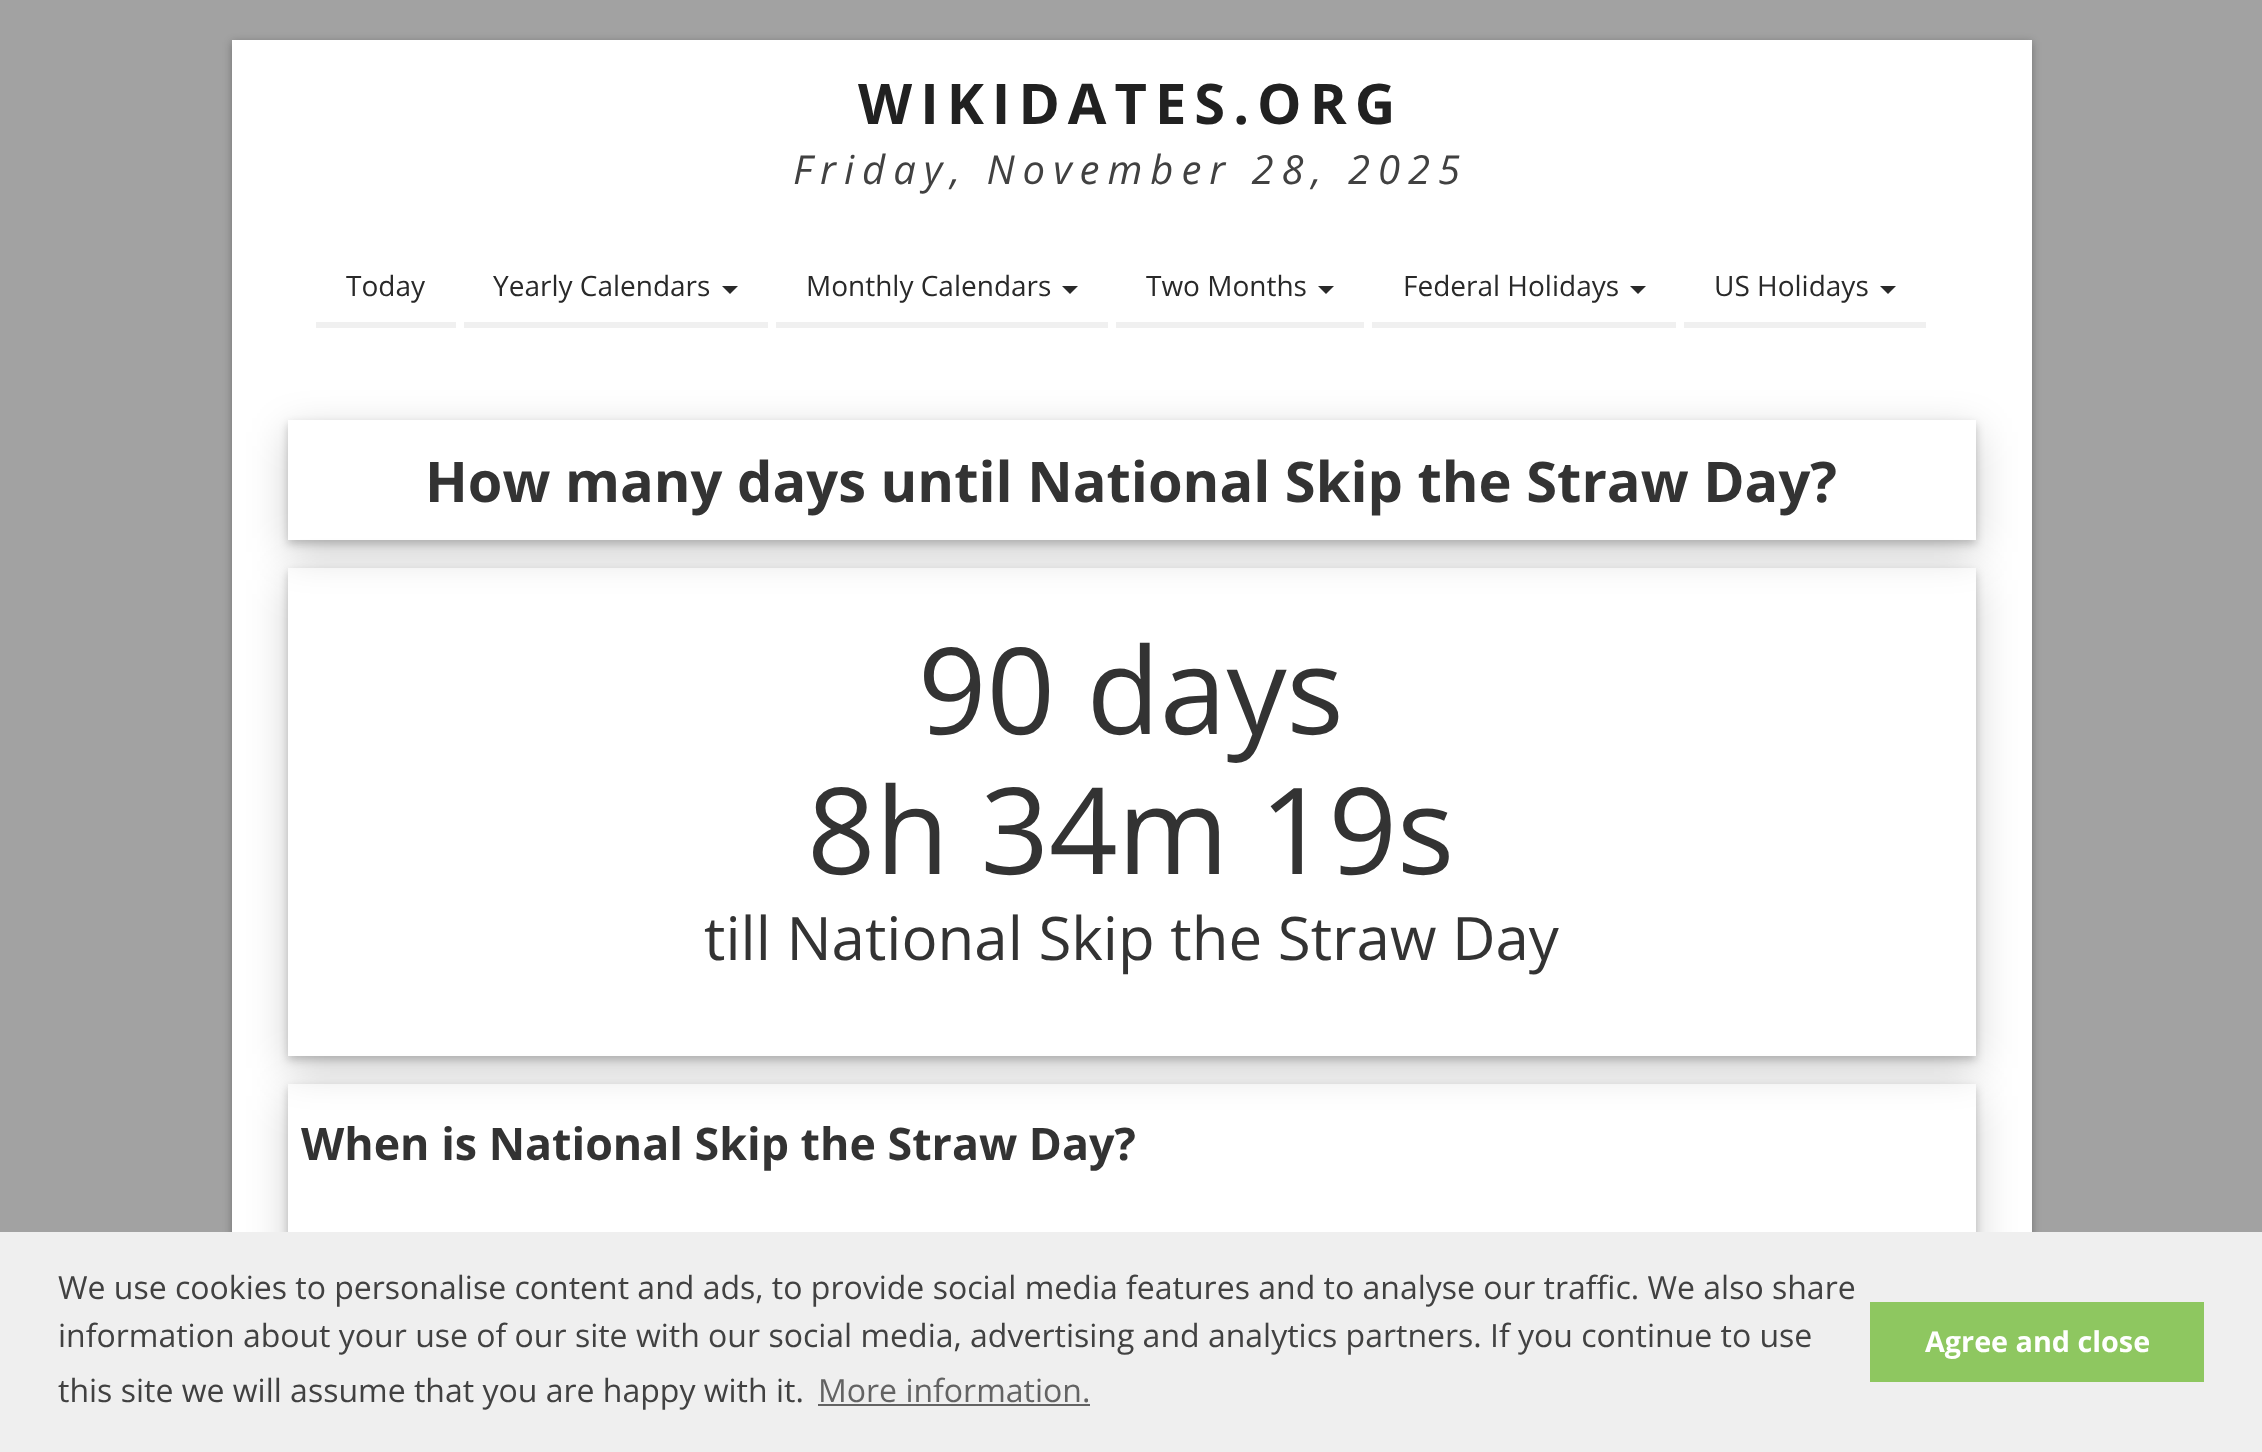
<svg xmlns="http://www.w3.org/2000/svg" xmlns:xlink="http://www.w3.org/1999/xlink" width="2262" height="1452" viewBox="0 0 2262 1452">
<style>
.cls-1{font:bold 56px Open Sans;letter-spacing:8px;fill:#212121}
.cls-2{font:italic 40px Open Sans;letter-spacing:8px;fill:#414141}
.cls-3{font:28px Open Sans;fill:#292929}
.cls-4{font:bold 56px Open Sans;fill:#333333}
.cls-5{font:120px Open Sans;fill:#333333}
.cls-6{font:60px Open Sans;fill:#333333}
.cls-7{font:bold 44.75px Open Sans;fill:#333333}
.cls-8{font:32px Open Sans;fill:#414141}
.cls-9{font:32px Open Sans;fill:#636363}
.cls-10{font:bold 28.75px Open Sans;fill:#ffffff}
</style>
<defs>
<clipPath id="clip1"><path d="M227 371H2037V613H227ZM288 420H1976V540H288Z" clip-rule="evenodd"/></clipPath>
<clipPath id="clip2"><path d="M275 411H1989V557H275ZM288 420H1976V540H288Z" clip-rule="evenodd"/></clipPath>
<clipPath id="clip3"><path d="M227 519H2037V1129H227ZM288 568H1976V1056H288Z" clip-rule="evenodd"/></clipPath>
<clipPath id="clip4"><path d="M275 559H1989V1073H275ZM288 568H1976V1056H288Z" clip-rule="evenodd"/></clipPath>
<clipPath id="clip5"><path d="M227 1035H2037V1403H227ZM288 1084H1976V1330H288Z" clip-rule="evenodd"/></clipPath>
<clipPath id="clip6"><path d="M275 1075H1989V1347H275ZM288 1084H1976V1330H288Z" clip-rule="evenodd"/></clipPath>
</defs>
<rect width="100%" height="100%" fill="#a2a2a2"/>
<rect fill="#000000" fill-opacity="0.3" filter="blur(4px)" x="232" y="42" width="1800" height="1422"/>
<rect fill="#ffffff" x="232" y="40" width="1800" height="1192"/>
<rect fill="#f0f0f0" x="316" y="322" width="140" height="6"/>
<rect fill="#f0f0f0" x="464" y="322" width="304" height="6"/>
<path fill="#292929" d="M722 286H738L730 294Z"/>
<rect fill="#f0f0f0" x="776" y="322" width="332" height="6"/>
<path fill="#292929" d="M1062 286H1078L1070 294Z"/>
<rect fill="#f0f0f0" x="1116" y="322" width="248" height="6"/>
<path fill="#292929" d="M1318 286H1334L1326 294Z"/>
<rect fill="#f0f0f0" x="1372" y="322" width="304" height="6"/>
<path fill="#292929" d="M1630 286H1646L1638 294Z"/>
<rect fill="#f0f0f0" x="1684" y="322" width="242" height="6"/>
<path fill="#292929" d="M1880 286H1896L1888 294Z"/>
<g clip-path="url(#clip1)">
<rect fill="#000000" fill-opacity="0.19" filter="blur(20px)" x="288" y="432" width="1688" height="120"/>
</g>
<g clip-path="url(#clip2)">
<rect fill="#000000" fill-opacity="0.2" filter="blur(4px)" x="288" y="424" width="1688" height="120"/>
</g>
<g clip-path="url(#clip3)">
<rect fill="#000000" fill-opacity="0.19" filter="blur(20px)" x="288" y="580" width="1688" height="488"/>
</g>
<g clip-path="url(#clip4)">
<rect fill="#000000" fill-opacity="0.2" filter="blur(4px)" x="288" y="572" width="1688" height="488"/>
</g>
<g clip-path="url(#clip5)">
<rect fill="#000000" fill-opacity="0.19" filter="blur(20px)" x="288" y="1096" width="1688" height="246"/>
</g>
<g clip-path="url(#clip6)">
<rect fill="#000000" fill-opacity="0.2" filter="blur(4px)" x="288" y="1088" width="1688" height="246"/>
</g>
<rect fill="#efefef" x="0" y="1232" width="2262" height="220"/>
<rect fill="#636363" x="818" y="1404" width="272" height="2"/>
<rect fill="#8ec760" x="1870" y="1302" width="334" height="80"/>
<text class="cls-1" x="858" y="124">WIKIDATES.ORG</text>
<text class="cls-2" x="793" y="184">Friday, November 28, 2025</text>
<text class="cls-3" x="346" y="296">Today</text>
<text class="cls-3" x="493" y="296">Yearly Calendars</text>
<text class="cls-3" x="806" y="296">Monthly Calendars</text>
<text class="cls-3" x="1146" y="296">Two Months</text>
<text class="cls-3" x="1403" y="296">Federal Holidays</text>
<text class="cls-3" x="1714" y="296">US Holidays</text>
<text class="cls-4" x="425" y="502">How many days until National Skip the Straw Day?</text>
<text class="cls-5" x="918" y="734">90 days</text>
<text class="cls-5" x="807" y="874">8h 34m 19s</text>
<text class="cls-6" x="704" y="960">till National Skip the Straw Day</text>
<text class="cls-7" x="301" y="1160">When is National Skip the Straw Day?</text>
<text class="cls-8"><tspan x="58" y="1299">We use cookies to personalise content and ads, to provide social media features and to analyse our traffic. We also share</tspan><tspan x="58" y="1347">information about your use of our site with our social media, advertising and analytics partners. If you continue to use</tspan><tspan x="58" y="1402">this site we will assume that you are happy with it.</tspan></text>
<text class="cls-9" x="818" y="1402">More information.</text>
<text class="cls-10" x="1925" y="1352">Agree and close</text>
</svg>
